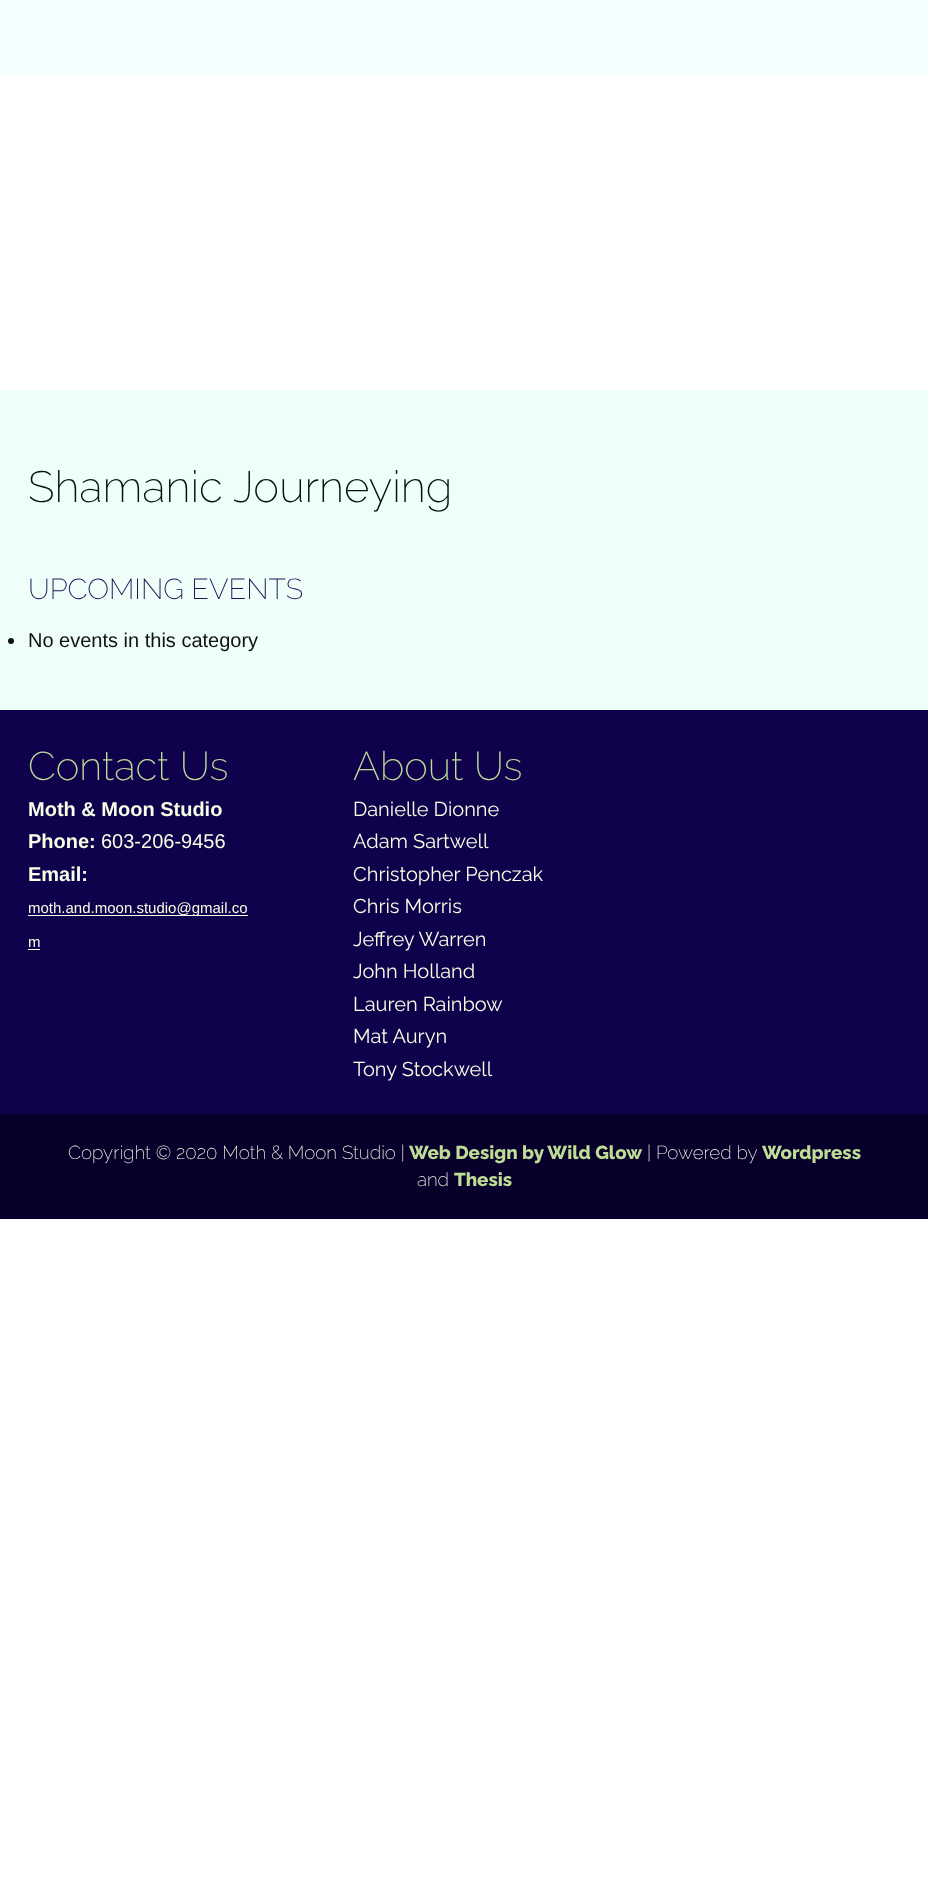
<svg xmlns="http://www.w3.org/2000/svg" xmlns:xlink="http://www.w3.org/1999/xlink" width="928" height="1880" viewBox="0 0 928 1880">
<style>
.cls-1{font:200 43.75px Raleway;fill:#00120a}
.cls-2{font:200 28.75px Raleway;fill:#211258}
.cls-3{font:20px Liberation Sans;fill:#111111}
.cls-4{font:200 40px Raleway;fill:#bddc96}
.cls-5{font:bold 20px Liberation Sans;fill:#f4ffe5}
.cls-6{font:20px Liberation Sans;fill:#f4ffe5}
.cls-7{font:15px Liberation Sans;fill:#f4ffe5}
.cls-8{font:20px Raleway;fill:#f4ffe5}
.cls-9{font:200 18.75px Raleway;fill:#f4ffe5}
.cls-10{font:800 18.75px Raleway;fill:#bddc96}
</style>
<rect width="100%" height="100%" fill="#ffffff"/>
<rect fill="#f1fffe" x="0" y="0" width="928" height="75"/>
<rect fill="#edfff8" x="0" y="390" width="928" height="320"/>
<circle fill="#111111" cx="11" cy="641" r="3"/>
<rect fill="#0f014b" x="0" y="710" width="928" height="404"/>
<rect fill="#f4ffe5" x="28" y="915" width="220" height="1"/>
<rect fill="#f4ffe5" x="28" y="949" width="12" height="1"/>
<rect fill="#08002a" x="0" y="1114" width="928" height="105"/>
<text class="cls-1" x="28" y="502">Shamanic Journeying</text>
<text class="cls-2" x="28" y="599">UPCOMING EVENTS</text>
<text class="cls-3" x="28" y="647">No events in this category</text>
<text class="cls-4" x="28" y="780">Contact Us</text>
<text class="cls-5"><tspan x="28" y="816">Moth &amp; Moon Studio</tspan><tspan x="28" y="848">Phone:</tspan></text>
<text class="cls-6" x="101" y="848">603-206-9456</text>
<text class="cls-5" x="28" y="881">Email:</text>
<text class="cls-7" x="28" y="913">moth.and.moon.studio@gmail.co</text>
<text class="cls-7" x="28" y="947">m</text>
<text class="cls-4" x="353" y="780">About Us</text>
<text class="cls-8"><tspan x="353" y="816">Danielle Dionne</tspan><tspan x="353" y="848">Adam Sartwell</tspan><tspan x="353" y="881">Christopher Penczak</tspan><tspan x="353" y="913">Chris Morris</tspan><tspan x="353" y="946">Jeffrey Warren</tspan><tspan x="353" y="978">John Holland</tspan><tspan x="353" y="1011">Lauren Rainbow</tspan><tspan x="353" y="1043">Mat Auryn</tspan><tspan x="353" y="1076">Tony Stockwell</tspan></text>
<text class="cls-9" x="68" y="1159">Copyright © 2020 Moth &amp; Moon Studio |</text>
<text class="cls-10" x="409" y="1159">Web Design by Wild Glow</text>
<text class="cls-9" x="647" y="1159">| Powered by</text>
<text class="cls-10" x="762" y="1159">Wordpress</text>
<text class="cls-9" x="417" y="1186">and</text>
<text class="cls-10" x="454" y="1186">Thesis</text>
</svg>
